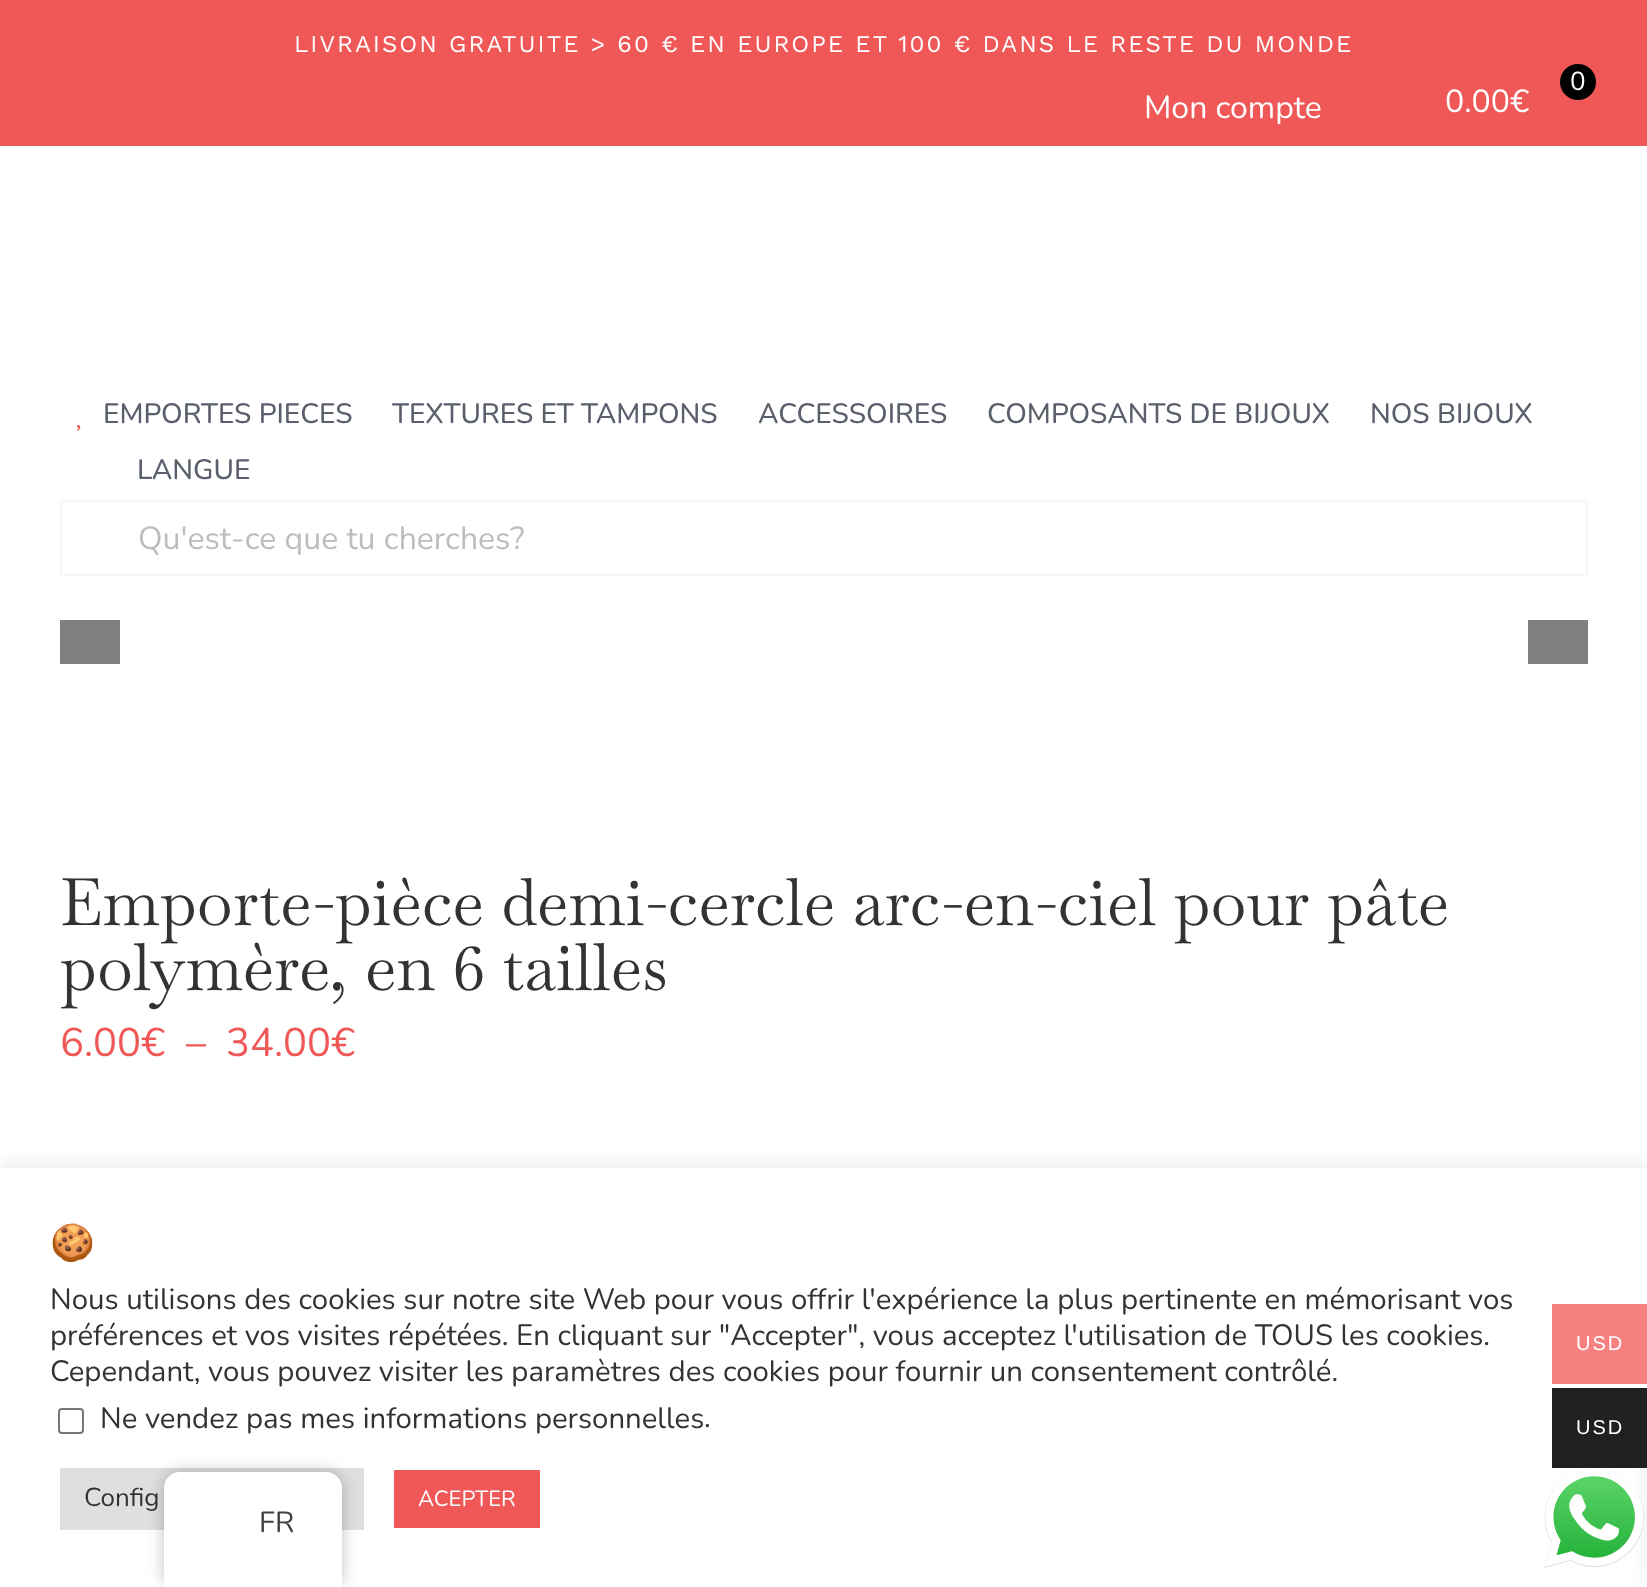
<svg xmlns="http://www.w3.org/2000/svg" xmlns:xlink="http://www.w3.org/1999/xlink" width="1647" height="1587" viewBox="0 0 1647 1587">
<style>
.cls-1{font:24px Work Sans;letter-spacing:2px;fill:#ffffff}
.cls-2{font:32px Nunito;fill:#ffffff}
.cls-3{font:26px Nunito;fill:#ffffff}
.cls-4{font:500 28px Nunito;fill:#595f6b}
.cls-5{font:32px Nunito;fill:#bebdbd}
.cls-6{font:65.6px Baskervville;fill:#333333}
.cls-7{font:40px Nunito;fill:#f05858}
.cls-8{font:36px Noto Color Emoji;letter-spacing:2px;fill:#333333}
.cls-9{font:29.35px Nunito;fill:#333333}
.cls-10{font:26px Nunito;fill:#333333}
.cls-11{font:22px Nunito;fill:#ffffff}
.cls-12{font:20px Liberation Sans;letter-spacing:2px;fill:#ffffff}
.cls-13{font:29px Nunito;fill:#404040}
</style>
<rect width="100%" height="100%" fill="#ffffff"/>
<rect fill="#f05858" x="0" y="0" width="1647" height="146"/>
<circle fill="#000000" cx="1578" cy="82" r="18"/>
<image xlink:href="image0.png" x="76" y="425" width="5" height="6"/>
<rect fill="none" stroke="#f6f6f6" stroke-width="2" x="61" y="501" width="1526" height="74"/>
<rect fill="#808080" x="60" y="620" width="60" height="44"/>
<rect fill="#808080" x="1528" y="620" width="60" height="44"/>
<rect fill="#acabab" fill-opacity="0.3" filter="blur(10px)" x="0" y="1166" width="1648" height="420"/>
<rect fill="#ffffff" x="0" y="1168" width="1647" height="419"/>
<rect fill="none" stroke="#767676" stroke-width="2" x="59" y="1409" width="24" height="24" rx="3"/>
<rect fill="#dedfe0" x="60" y="1468" width="304" height="62"/>
<rect fill="#f05858" x="394" y="1470" width="146" height="58"/>
<rect fill="#f78080" x="1552" y="1304" width="95" height="80"/>
<rect fill="#000000" fill-opacity="0.1" filter="blur(10px)" x="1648" y="1450" width="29" height="128"/>
<rect fill="#212121" x="1552" y="1388" width="95" height="80"/>
<rect fill="#000000" fill-opacity="0.25" filter="blur(8px)" x="164" y="1472" width="178" height="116" rx="16"/>
<path fill="#ffffff" d="M180 1472H326C335 1472 342 1479 342 1488V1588H164V1488C164 1479 171 1472 180 1472Z"/>
<image xlink:href="image1.png" x="1544" y="1468" width="100" height="100"/>
<text class="cls-1" x="294" y="52">LIVRAISON GRATUITE &gt; 60 € EN EUROPE ET 100 € DANS LE RESTE DU MONDE</text>
<text class="cls-2" x="1144" y="118">Mon compte</text>
<text class="cls-3" x="1570" y="90">0</text>
<text class="cls-2" x="1445" y="112">0.00€</text>
<text class="cls-4" x="103" y="423">EMPORTES PIECES</text>
<text class="cls-4" x="392" y="423">TEXTURES ET TAMPONS</text>
<text class="cls-4" x="758" y="423">ACCESSOIRES</text>
<text class="cls-4" x="987" y="423">COMPOSANTS DE BIJOUX</text>
<text class="cls-4" x="1370" y="423">NOS BIJOUX</text>
<text class="cls-4" x="137" y="479">LANGUE</text>
<text class="cls-5" x="138" y="549">Qu'est-ce que tu cherches?</text>
<text class="cls-6"><tspan x="60" y="925">Emporte-pièce demi-cercle arc-en-ciel pour pâte</tspan><tspan x="60" y="990">polymère, en 6 tailles</tspan></text>
<text class="cls-7" x="60" y="1056">6.00€</text>
<text class="cls-7" x="186" y="1056">–</text>
<text class="cls-7" x="226" y="1056">34.00€</text>
<text class="cls-8" x="50" y="1255">🍪</text>
<text class="cls-9"><tspan x="50" y="1309">Nous utilisons des cookies sur notre site Web pour vous offrir l'expérience la plus pertinente en mémorisant vos</tspan><tspan x="50" y="1345">préférences et vos visites répétées. En cliquant sur "Accepter", vous acceptez l'utilisation de TOUS les cookies.</tspan><tspan x="50" y="1381">Cependant, vous pouvez visiter les paramètres des cookies pour fournir un consentement contrôlé.</tspan></text>
<text class="cls-9" x="100" y="1428">Ne vendez pas mes informations personnelles</text>
<text class="cls-9" x="704" y="1427">.</text>
<text class="cls-10" x="84" y="1506">Config</text>
<text class="cls-11" x="418" y="1506">ACEPTER</text>
<text class="cls-12" x="1576" y="1350">USD</text>
<text class="cls-12" x="1576" y="1434">USD</text>
<text class="cls-13" x="259" y="1532">FR</text>
</svg>
